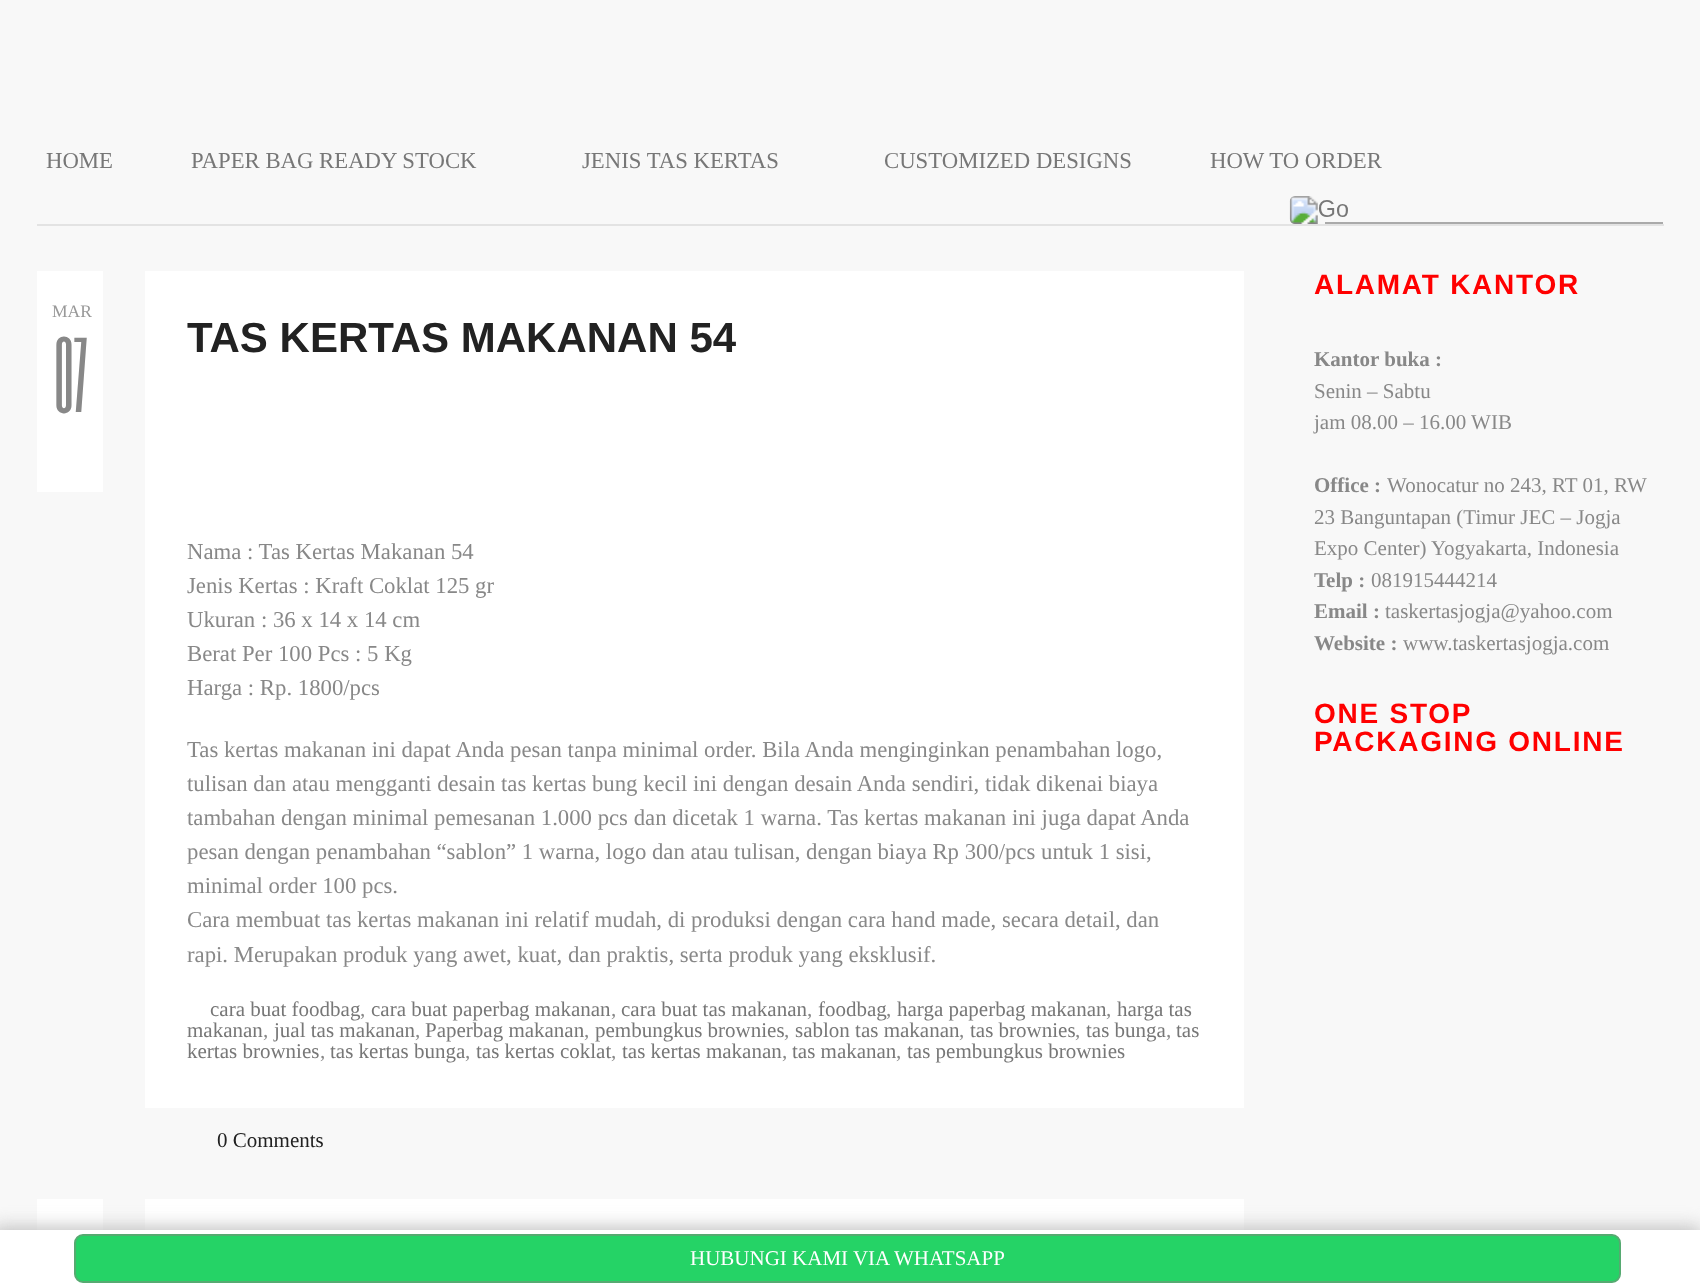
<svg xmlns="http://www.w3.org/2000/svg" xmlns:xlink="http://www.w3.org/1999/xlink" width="1700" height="1285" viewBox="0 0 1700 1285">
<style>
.cls-1{font:22.75px Liberation Serif;fill:#777777}
.cls-2{font:17.5px Liberation Serif;fill:#999999}
.cls-3{font:88px Six Caps;fill:#888888}
.cls-4{font:bold 42px Liberation Sans;fill:#222222}
.cls-5{font:22.75px Liberation Serif;fill:#888888}
.cls-6{font:21px Liberation Serif;fill:#777777}
.cls-7{font:21px Liberation Serif;fill:#888888}
.cls-8{font:21px Liberation Serif;fill:#222222}
.cls-9{font:bold 28px Liberation Sans;letter-spacing:1.75px;fill:#ff0000}
.cls-10{font:bold 21px Liberation Serif;fill:#888888}
.cls-11{font:21px Liberation Serif;fill:#ffffff}
</style>
<rect width="100%" height="100%" fill="#f8f8f8"/>
<rect fill="#e3e3e3" x="37" y="224" width="1627" height="2"/>
<rect fill="#aaaaaa" x="1325" y="222" width="338" height="2"/>
<image xlink:href="image0.png" x="1289" y="196" width="59" height="28"/>
<rect fill="#ffffff" x="37" y="271" width="66" height="221"/>
<rect fill="#ffffff" x="145" y="271" width="1099" height="837"/>
<rect fill="#ffffff" x="37" y="1199" width="66" height="31"/>
<rect fill="#ffffff" x="145" y="1199" width="1099" height="31"/>
<rect fill="#c0c0c0" filter="blur(9px)" x="-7" y="1227" width="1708" height="56"/>
<rect fill="#ffffff" x="0" y="1230" width="1700" height="55"/>
<rect fill="#25d366" stroke="#56aa71" stroke-width="2" x="75" y="1235" width="1545" height="47" rx="8"/>
<text class="cls-1" x="46" y="168">HOME</text>
<text class="cls-1" x="191" y="168">PAPER BAG READY STOCK</text>
<text class="cls-1" x="582" y="168">JENIS TAS KERTAS</text>
<text class="cls-1" x="884" y="168">CUSTOMIZED DESIGNS</text>
<text class="cls-1" x="1210" y="168">HOW TO ORDER</text>
<text class="cls-2" x="52" y="317">MAR</text>
<text class="cls-3" x="55" y="412">07</text>
<text class="cls-4" x="187" y="352">TAS KERTAS MAKANAN 54</text>
<text class="cls-5"><tspan x="187" y="559">Nama : Tas Kertas Makanan 54</tspan><tspan x="187" y="593">Jenis Kertas : Kraft Coklat 125 gr</tspan><tspan x="187" y="627">Ukuran : 36 x 14 x 14 cm</tspan><tspan x="187" y="661">Berat Per 100 Pcs : 5 Kg</tspan><tspan x="187" y="695">Harga : Rp. 1800/pcs</tspan></text>
<text class="cls-5"><tspan x="187" y="757">Tas kertas makanan ini dapat Anda pesan tanpa minimal order. Bila Anda menginginkan penambahan logo,</tspan><tspan x="187" y="791">tulisan dan atau mengganti desain tas kertas bung kecil ini dengan desain Anda sendiri, tidak dikenai biaya</tspan><tspan x="187" y="825">tambahan dengan minimal pemesanan 1.000 pcs dan dicetak 1 warna. Tas kertas makanan ini juga dapat Anda</tspan><tspan x="187" y="859">pesan dengan penambahan “sablon” 1 warna, logo dan atau tulisan, dengan biaya Rp 300/pcs untuk 1 sisi,</tspan><tspan x="187" y="893">minimal order 100 pcs.</tspan><tspan x="187" y="927">Cara membuat tas kertas makanan ini relatif mudah, di produksi dengan cara hand made, secara detail, dan</tspan><tspan x="187" y="962">rapi. Merupakan produk yang awet, kuat, dan praktis, serta produk yang eksklusif.</tspan></text>
<text class="cls-6" x="210" y="1016">cara buat foodbag</text>
<text class="cls-7" x="360" y="1016">,</text>
<text class="cls-6" x="371" y="1016">cara buat paperbag makanan</text>
<text class="cls-7" x="611" y="1016">,</text>
<text class="cls-6" x="621" y="1016">cara buat tas makanan</text>
<text class="cls-7" x="807" y="1016">,</text>
<text class="cls-6" x="818" y="1016">foodbag</text>
<text class="cls-7" x="886" y="1016">,</text>
<text class="cls-6" x="897" y="1016">harga paperbag makanan</text>
<text class="cls-7" x="1106" y="1016">,</text>
<text class="cls-6" x="1117" y="1016">harga tas</text>
<text class="cls-6" x="187" y="1037">makanan</text>
<text class="cls-7" x="263" y="1037">,</text>
<text class="cls-6" x="274" y="1037">jual tas makanan</text>
<text class="cls-7" x="415" y="1037">,</text>
<text class="cls-6" x="425" y="1037">Paperbag makanan</text>
<text class="cls-7" x="584" y="1037">,</text>
<text class="cls-6" x="595" y="1037">pembungkus brownies</text>
<text class="cls-7" x="784" y="1037">,</text>
<text class="cls-6" x="795" y="1037">sablon tas makanan</text>
<text class="cls-7" x="959" y="1037">,</text>
<text class="cls-6" x="970" y="1037">tas brownies</text>
<text class="cls-7" x="1075" y="1037">,</text>
<text class="cls-6" x="1086" y="1037">tas bunga</text>
<text class="cls-7" x="1166" y="1037">,</text>
<text class="cls-6" x="1176" y="1037">tas</text>
<text class="cls-6" x="187" y="1058">kertas brownies</text>
<text class="cls-7" x="320" y="1058">,</text>
<text class="cls-6" x="330" y="1058">tas kertas bunga</text>
<text class="cls-7" x="465" y="1058">,</text>
<text class="cls-6" x="476" y="1058">tas kertas coklat</text>
<text class="cls-7" x="611" y="1058">,</text>
<text class="cls-6" x="622" y="1058">tas kertas makanan</text>
<text class="cls-7" x="782" y="1058">,</text>
<text class="cls-6" x="792" y="1058">tas makanan</text>
<text class="cls-7" x="896" y="1058">,</text>
<text class="cls-6" x="907" y="1058">tas pembungkus brownies</text>
<text class="cls-8" x="217" y="1147">0 Comments</text>
<text class="cls-9" x="1314" y="294">ALAMAT KANTOR</text>
<text class="cls-10" x="1314" y="366">Kantor buka :</text>
<text class="cls-7"><tspan x="1314" y="398">Senin – Sabtu</tspan><tspan x="1314" y="429">jam 08.00 – 16.00 WIB</tspan></text>
<text class="cls-10" x="1314" y="492">Office :</text>
<text class="cls-7" x="1387" y="492">Wonocatur no 243, RT 01, RW</text>
<text class="cls-7"><tspan x="1314" y="524">23 Banguntapan (Timur JEC – Jogja</tspan><tspan x="1314" y="555">Expo Center) Yogyakarta, Indonesia</tspan></text>
<text class="cls-10" x="1314" y="587">Telp :</text>
<text class="cls-7" x="1371" y="587">081915444214</text>
<text class="cls-10" x="1314" y="618">Email :</text>
<text class="cls-7" x="1385" y="618">taskertasjogja@yahoo.com</text>
<text class="cls-10" x="1314" y="650">Website :</text>
<text class="cls-7" x="1403" y="650">www.taskertasjogja.com</text>
<text class="cls-9"><tspan x="1314" y="723">ONE STOP</tspan><tspan x="1314" y="751">PACKAGING ONLINE</tspan></text>
<text class="cls-11" x="690" y="1265">HUBUNGI KAMI VIA WHATSAPP</text>
</svg>
